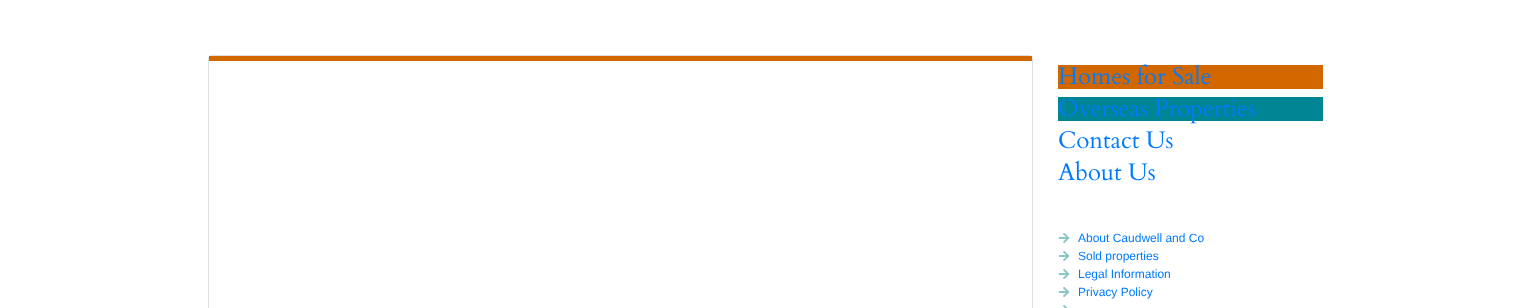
<svg xmlns="http://www.w3.org/2000/svg" xmlns:xlink="http://www.w3.org/1999/xlink" width="1525" height="308" viewBox="0 0 1525 308">
<style>
.cls-1{font:12px Liberation Sans;fill:#007bff}
</style>
<rect width="100%" height="100%" fill="#ffffff"/>
<rect fill="none" stroke="#dfdfdf" x="208.5" y="55.5" width="824" height="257" rx="3.5"/>
<rect fill="#d26700" x="209" y="56" width="823" height="5"/>
<rect fill="#d26700" x="1058" y="65" width="265" height="24"/>
<image xlink:href="image0.png" x="1058" y="64" width="153" height="21"/>
<rect fill="#008594" x="1058" y="97" width="265" height="24"/>
<image xlink:href="image1.png" x="1059" y="99" width="196" height="25"/>
<image xlink:href="image2.png" x="1059" y="131" width="114" height="18"/>
<image xlink:href="image3.png" x="1058" y="160" width="97" height="21"/>
<image xlink:href="image4.png" x="1058" y="233" width="12" height="10"/>
<image xlink:href="image4.png" x="1058" y="251" width="12" height="10"/>
<image xlink:href="image4.png" x="1058" y="269" width="12" height="10"/>
<image xlink:href="image4.png" x="1058" y="287" width="12" height="10"/>
<image xlink:href="image5.png" x="1063" y="305" width="5" height="3"/>
<text class="cls-1"><tspan x="1078" y="242">About Caudwell and Co</tspan><tspan x="1078" y="260">Sold properties</tspan><tspan x="1078" y="278">Legal Information</tspan><tspan x="1078" y="296">Privacy Policy</tspan></text>
</svg>
